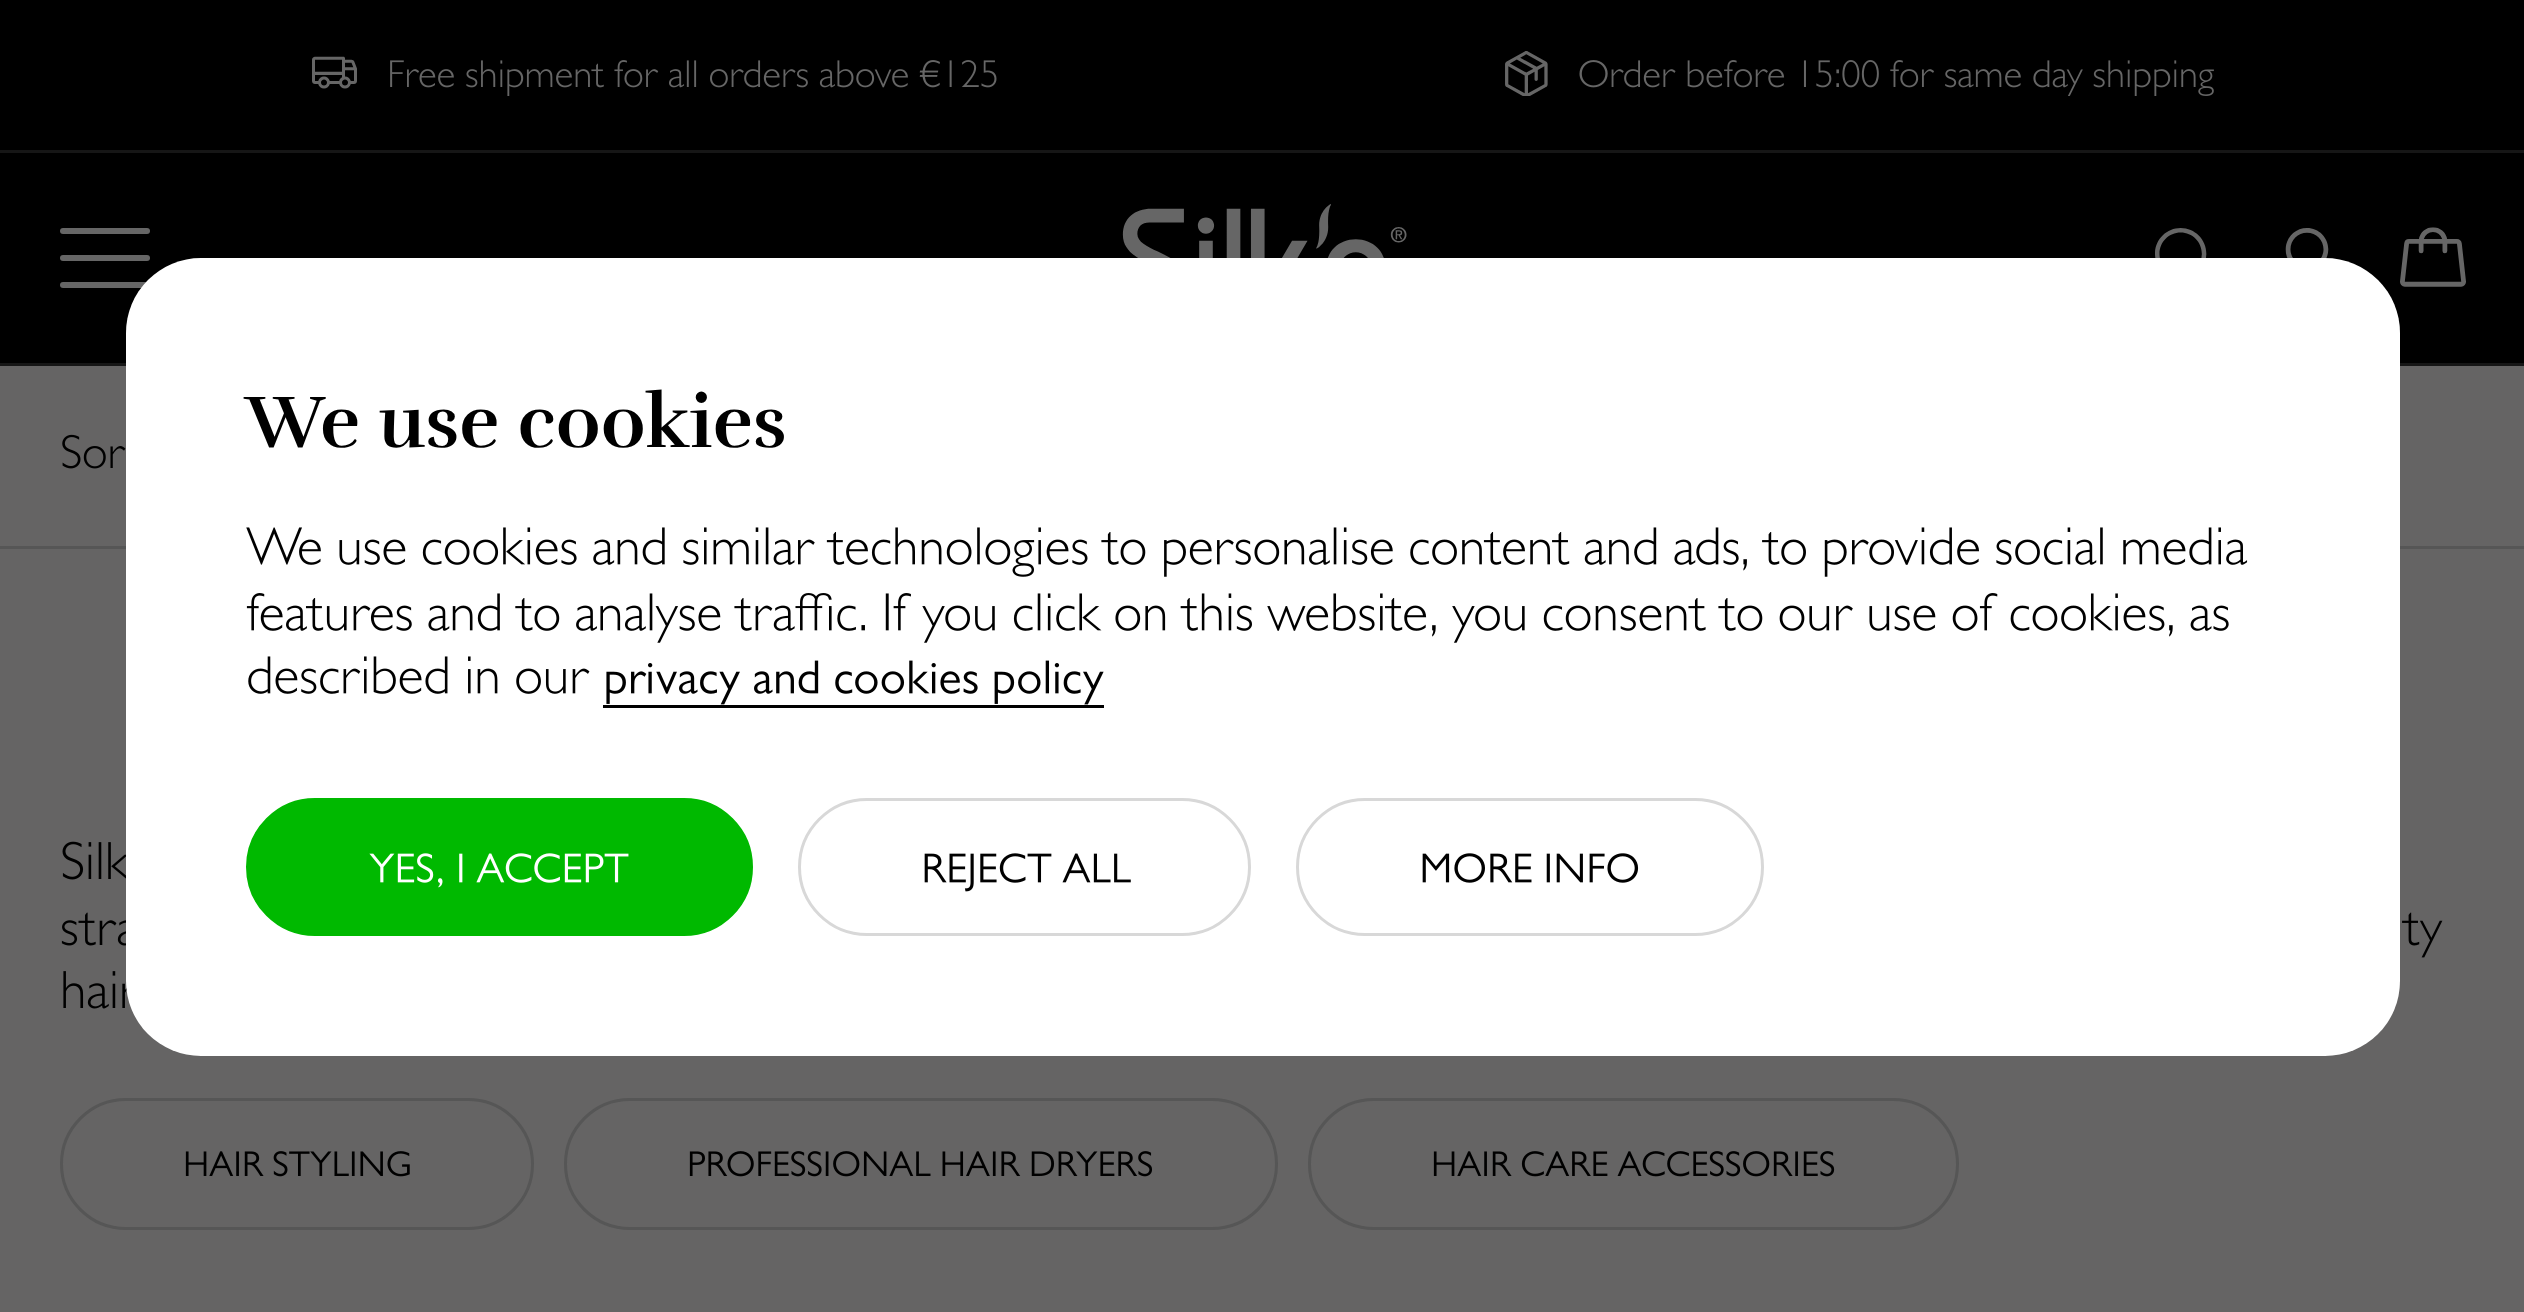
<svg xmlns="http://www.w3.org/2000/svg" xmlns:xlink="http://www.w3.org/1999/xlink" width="2524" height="1312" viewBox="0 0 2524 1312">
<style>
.cls-1{font:bold 75px Rufina;fill:#000000}
</style>
<rect width="100%" height="100%" fill="#656464"/>
<rect fill="#000000" x="0" y="0" width="2524" height="150"/>
<rect fill="#161616" x="0" y="150" width="2524" height="3"/>
<image xlink:href="image0.png" x="312" y="56" width="45" height="33"/>
<image xlink:href="image1.png" x="390" y="60" width="607" height="36"/>
<image xlink:href="image2.png" x="1505" y="51" width="43" height="45"/>
<image xlink:href="image3.png" x="1579" y="60" width="635" height="36"/>
<rect fill="#000000" x="0" y="153" width="2524" height="210"/>
<rect fill="#161616" x="0" y="363" width="2524" height="3"/>
<rect fill="#666666" x="60" y="228" width="90" height="6" rx="3"/>
<rect fill="#666666" x="60" y="255" width="90" height="6" rx="3"/>
<rect fill="#666666" x="60" y="282" width="90" height="6" rx="3"/>
<image xlink:href="image4.png" x="1122" y="204" width="285" height="54"/>
<image xlink:href="image5.png" x="2155" y="228" width="52" height="30"/>
<image xlink:href="image6.png" x="2285" y="228" width="44" height="31"/>
<image xlink:href="image7.png" x="2400" y="227" width="66" height="60"/>
<rect fill="#565656" x="0" y="546" width="2524" height="3"/>
<image xlink:href="image17.png" x="61" y="912" width="2382" height="46"/>
<image xlink:href="image18.png" x="63" y="971" width="64" height="38"/>
<rect fill="#ffffff" x="126" y="258" width="2274" height="798" rx="75"/>
<image xlink:href="image8.png" x="246" y="527" width="2002" height="50"/>
<image xlink:href="image9.png" x="246" y="593" width="1983" height="50"/>
<image xlink:href="image10.png" x="248" y="656" width="342" height="38"/>
<image xlink:href="image11.png" x="606" y="660" width="498" height="45"/>
<rect fill="#000000" x="603" y="705" width="501" height="3"/>
<rect fill="#00b900" stroke="#00b900" stroke-width="3" x="247.5" y="799.5" width="504" height="135" rx="67.5"/>
<image xlink:href="image12.png" x="369" y="853" width="260" height="35"/>
<rect fill="none" stroke="#d8d8d8" stroke-width="3" x="799.5" y="799.5" width="450" height="135" rx="67.5"/>
<image xlink:href="image13.png" x="924" y="853" width="207" height="39"/>
<rect fill="none" stroke="#d8d8d8" stroke-width="3" x="1297.5" y="799.5" width="465" height="135" rx="67.5"/>
<image xlink:href="image14.png" x="1422" y="853" width="217" height="30"/>
<image xlink:href="image15.png" x="62" y="434" width="64" height="35"/>
<image xlink:href="image16.png" x="62" y="841" width="64" height="39"/>
<rect fill="none" stroke="#565656" stroke-width="3" x="61.5" y="1099.5" width="471" height="129" rx="64.5"/>
<image xlink:href="image19.png" x="185" y="1151" width="225" height="26"/>
<rect fill="none" stroke="#565656" stroke-width="3" x="565.5" y="1099.5" width="711" height="129" rx="64.5"/>
<image xlink:href="image20.png" x="689" y="1151" width="463" height="26"/>
<rect fill="none" stroke="#565656" stroke-width="3" x="1309.5" y="1099.5" width="648" height="129" rx="64.5"/>
<image xlink:href="image21.png" x="1433" y="1151" width="402" height="26"/>
<text class="cls-1" x="246" y="447">We use cookies</text>
</svg>
